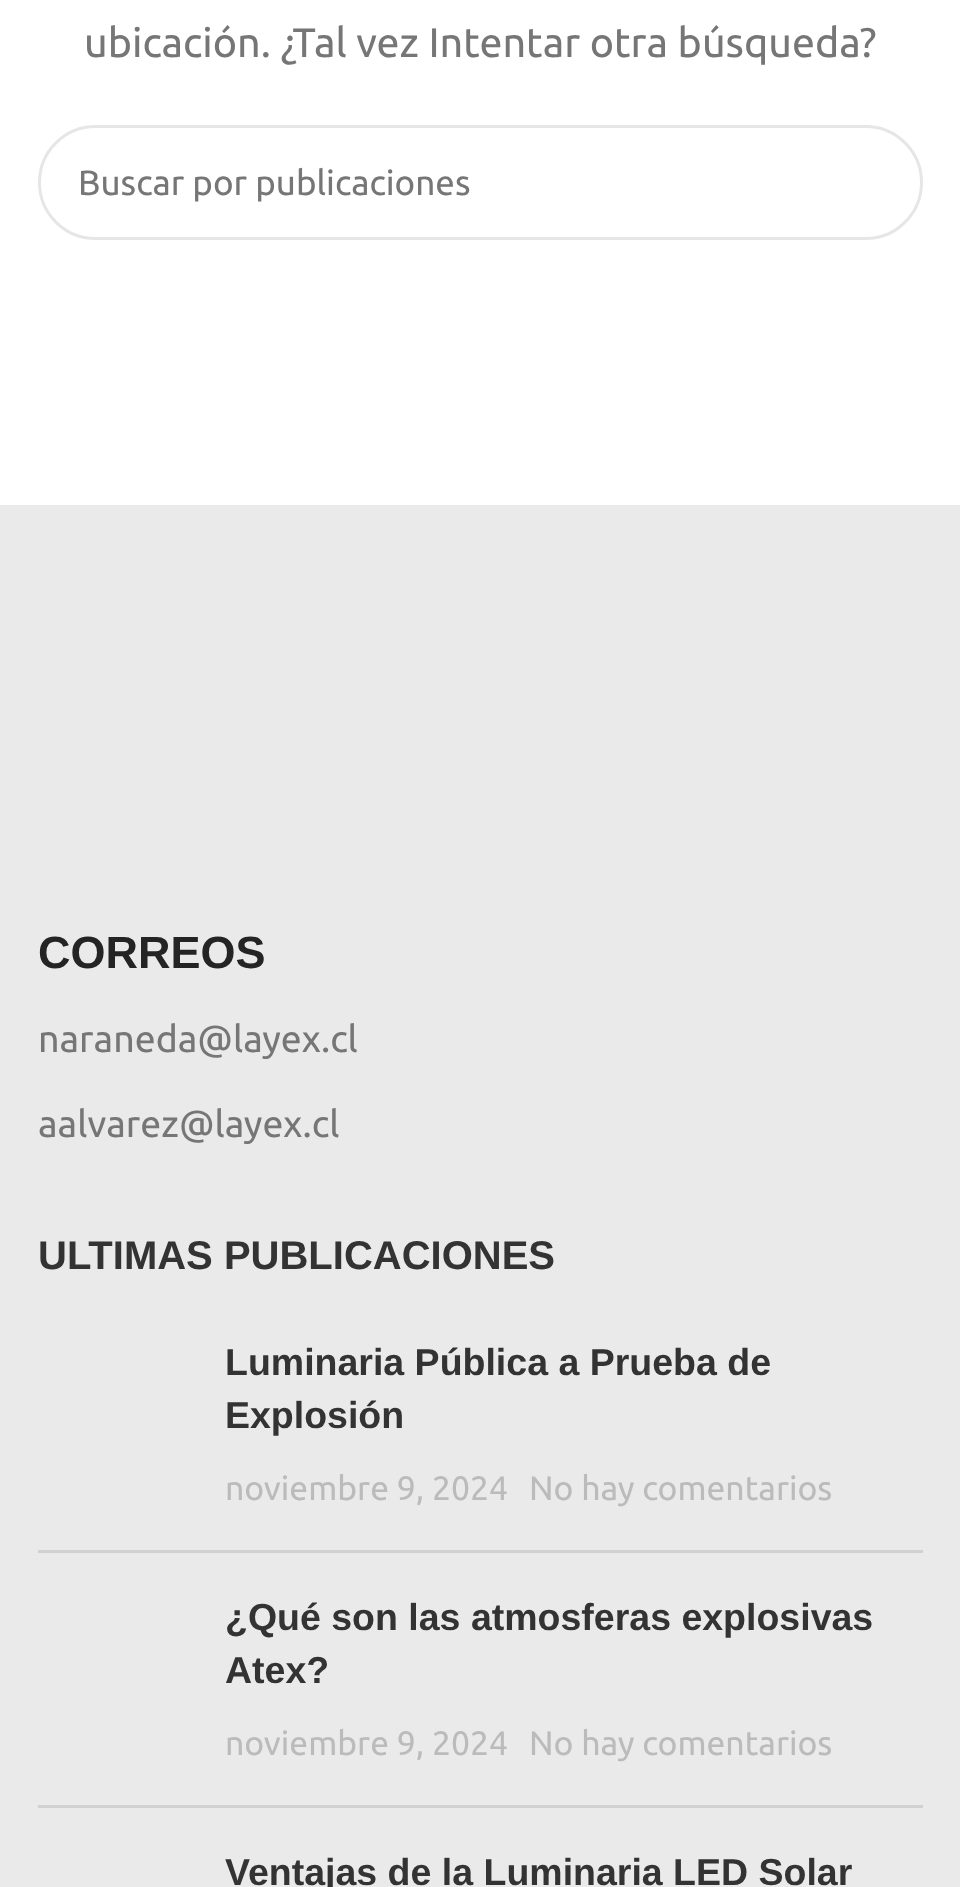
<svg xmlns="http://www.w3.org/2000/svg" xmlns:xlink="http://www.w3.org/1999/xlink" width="960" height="1887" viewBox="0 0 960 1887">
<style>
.cls-1{font:41.25px Ubuntu;fill:#767676}
.cls-2{font:35px Ubuntu;fill:#767676}
.cls-3{font:bold 45px Liberation Sans;fill:#242424}
.cls-4{font:37.5px Ubuntu;fill:#767676}
.cls-5{font:bold 40px Liberation Sans;fill:#333333}
.cls-6{font:bold 37.5px Liberation Sans;fill:#333333}
.cls-7{font:33.75px Ubuntu;fill:#bbbbbb}
</style>
<rect width="100%" height="100%" fill="#ffffff"/>
<rect fill="none" stroke="#e6e6e6" stroke-width="3" x="39.5" y="126.5" width="882" height="112" rx="56"/>
<rect fill="#eaeaea" x="0" y="505" width="960" height="1382"/>
<rect fill="#d1d1d1" x="38" y="1550" width="885" height="3"/>
<rect fill="#d1d1d1" x="38" y="1805" width="885" height="3"/>
<text class="cls-1" x="84" y="57">ubicación. ¿Tal vez Intentar otra búsqueda?</text>
<text class="cls-2" x="78" y="195">Buscar por publicaciones</text>
<text class="cls-3" x="38" y="968">CORREOS</text>
<text class="cls-4" x="38" y="1052">naraneda@layex.cl</text>
<text class="cls-4" x="38" y="1137">aalvarez@layex.cl</text>
<text class="cls-5" x="38" y="1269">ULTIMAS PUBLICACIONES</text>
<text class="cls-6"><tspan x="225" y="1375">Luminaria Pública a Prueba de</tspan><tspan x="225" y="1428">Explosión</tspan></text>
<text class="cls-7" x="225" y="1500">noviembre 9, 2024</text>
<text class="cls-7" x="529" y="1500">No hay comentarios</text>
<text class="cls-6"><tspan x="225" y="1630">¿Qué son las atmosferas explosivas</tspan><tspan x="225" y="1683">Atex?</tspan></text>
<text class="cls-7" x="225" y="1755">noviembre 9, 2024</text>
<text class="cls-7" x="529" y="1755">No hay comentarios</text>
<text class="cls-6" x="225" y="1885">Ventajas de la Luminaria LED Solar</text>
</svg>
